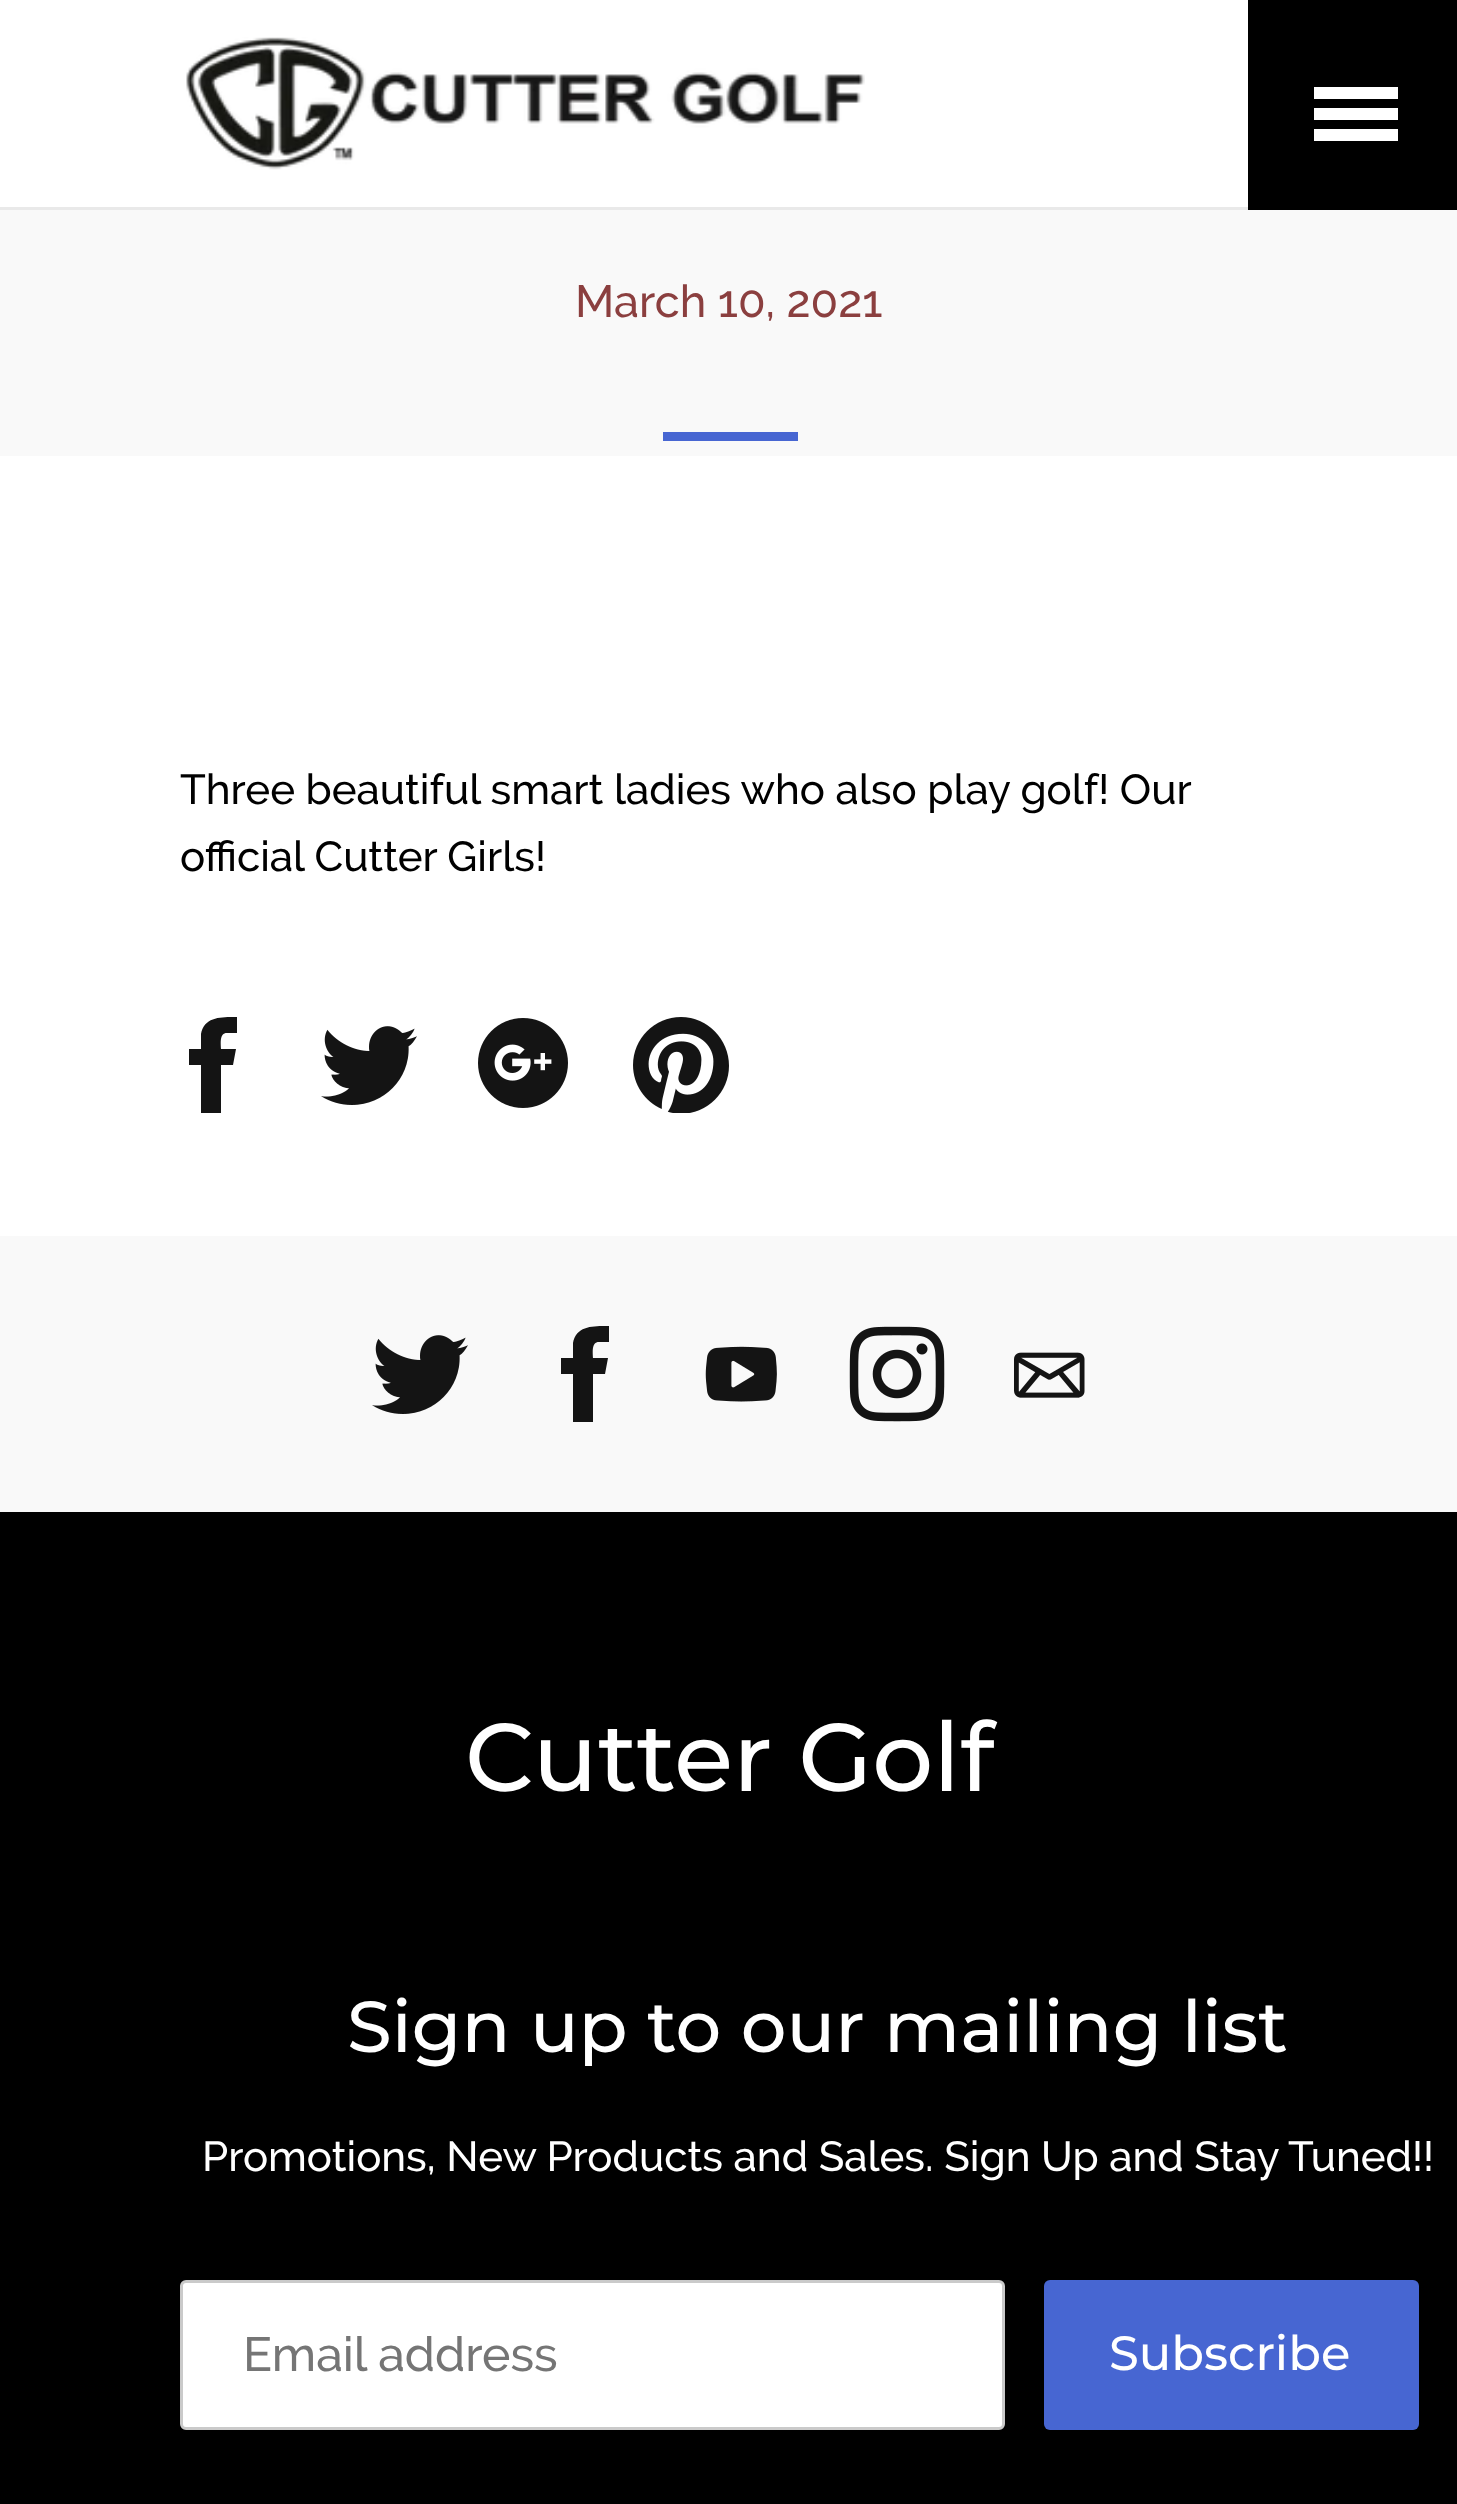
<svg xmlns="http://www.w3.org/2000/svg" xmlns:xlink="http://www.w3.org/1999/xlink" width="1457" height="2504" viewBox="0 0 1457 2504">
<style>
.cls-1{font:500 45px Raleway;fill:#8b3f3f}
.cls-2{font:500 42px Raleway;fill:#000000}
.cls-3{font:500 96px Montserrat;fill:#ffffff}
.cls-4{font:500 72px Montserrat;fill:#ffffff}
.cls-5{font:500 42px Raleway;fill:#ffffff}
.cls-6{font:500 48px Raleway;fill:#757575}
.cls-7{font:500 48px Montserrat;fill:#ffffff}
</style>
<rect width="100%" height="100%" fill="#ffffff"/>
<rect fill="#e9e9e9" x="0" y="207" width="1248" height="3"/>
<image xlink:href="image0.png" x="186" y="37" width="679" height="133"/>
<rect fill="#000000" x="1248" y="0" width="209" height="210"/>
<rect fill="#ffffff" x="1314" y="108" width="84" height="12"/>
<rect fill="#ffffff" x="1314" y="87" width="84" height="12"/>
<rect fill="#ffffff" x="1314" y="129" width="84" height="12"/>
<rect fill="#f9f9f9" x="0" y="210" width="1457" height="246"/>
<rect fill="#4766d2" x="663" y="432" width="135" height="9"/>
<path fill="#141414" d="M227 1033H237V1017C223 1017 204 1016 201 1034V1049H189V1065H201V1113H221V1065H233L236 1049H221C221 1044 219 1033 227 1033Z"/>
<image xlink:href="image1.png" x="321" y="1026" width="96" height="79"/>
<image xlink:href="image2.png" x="478" y="1018" width="90" height="90"/>
<image xlink:href="image3.png" x="633" y="1017" width="96" height="96"/>
<rect fill="#f9f9f9" x="0" y="1236" width="1457" height="276"/>
<image xlink:href="image4.png" x="372" y="1335" width="96" height="79"/>
<path fill="#141414" d="M599 1342H609V1326C595 1326 576 1325 573 1343V1358H561V1374H573V1422H593V1374H605L608 1358H593C593 1353 591 1342 599 1342Z"/>
<image xlink:href="image5.png" x="705" y="1346" width="72" height="56"/>
<image xlink:href="image6.png" x="849" y="1326" width="96" height="96"/>
<image xlink:href="image7.png" x="1014" y="1352" width="71" height="46"/>
<rect fill="#000000" x="0" y="1512" width="1457" height="992"/>
<rect fill="#ffffff" stroke="#cacaca" stroke-width="3" x="181.5" y="2281.5" width="822" height="147" rx="4.5"/>
<rect fill="#4766d2" x="1044" y="2280" width="375" height="150" rx="6"/>
<text class="cls-1" x="575" y="317">March 10, 2021</text>
<text class="cls-2"><tspan x="180" y="804">Three beautiful smart ladies who also play golf! Our</tspan><tspan x="180" y="871">official Cutter Girls!</tspan></text>
<text class="cls-3" x="465" y="1791">Cutter Golf</text>
<text class="cls-4" x="347" y="2052">Sign up to our mailing list</text>
<text class="cls-5" x="202" y="2171">Promotions, New Products and Sales. Sign Up and Stay Tuned!!</text>
<text class="cls-6" x="243" y="2371">Email address</text>
<text class="cls-7" x="1109" y="2370">Subscribe</text>
</svg>
